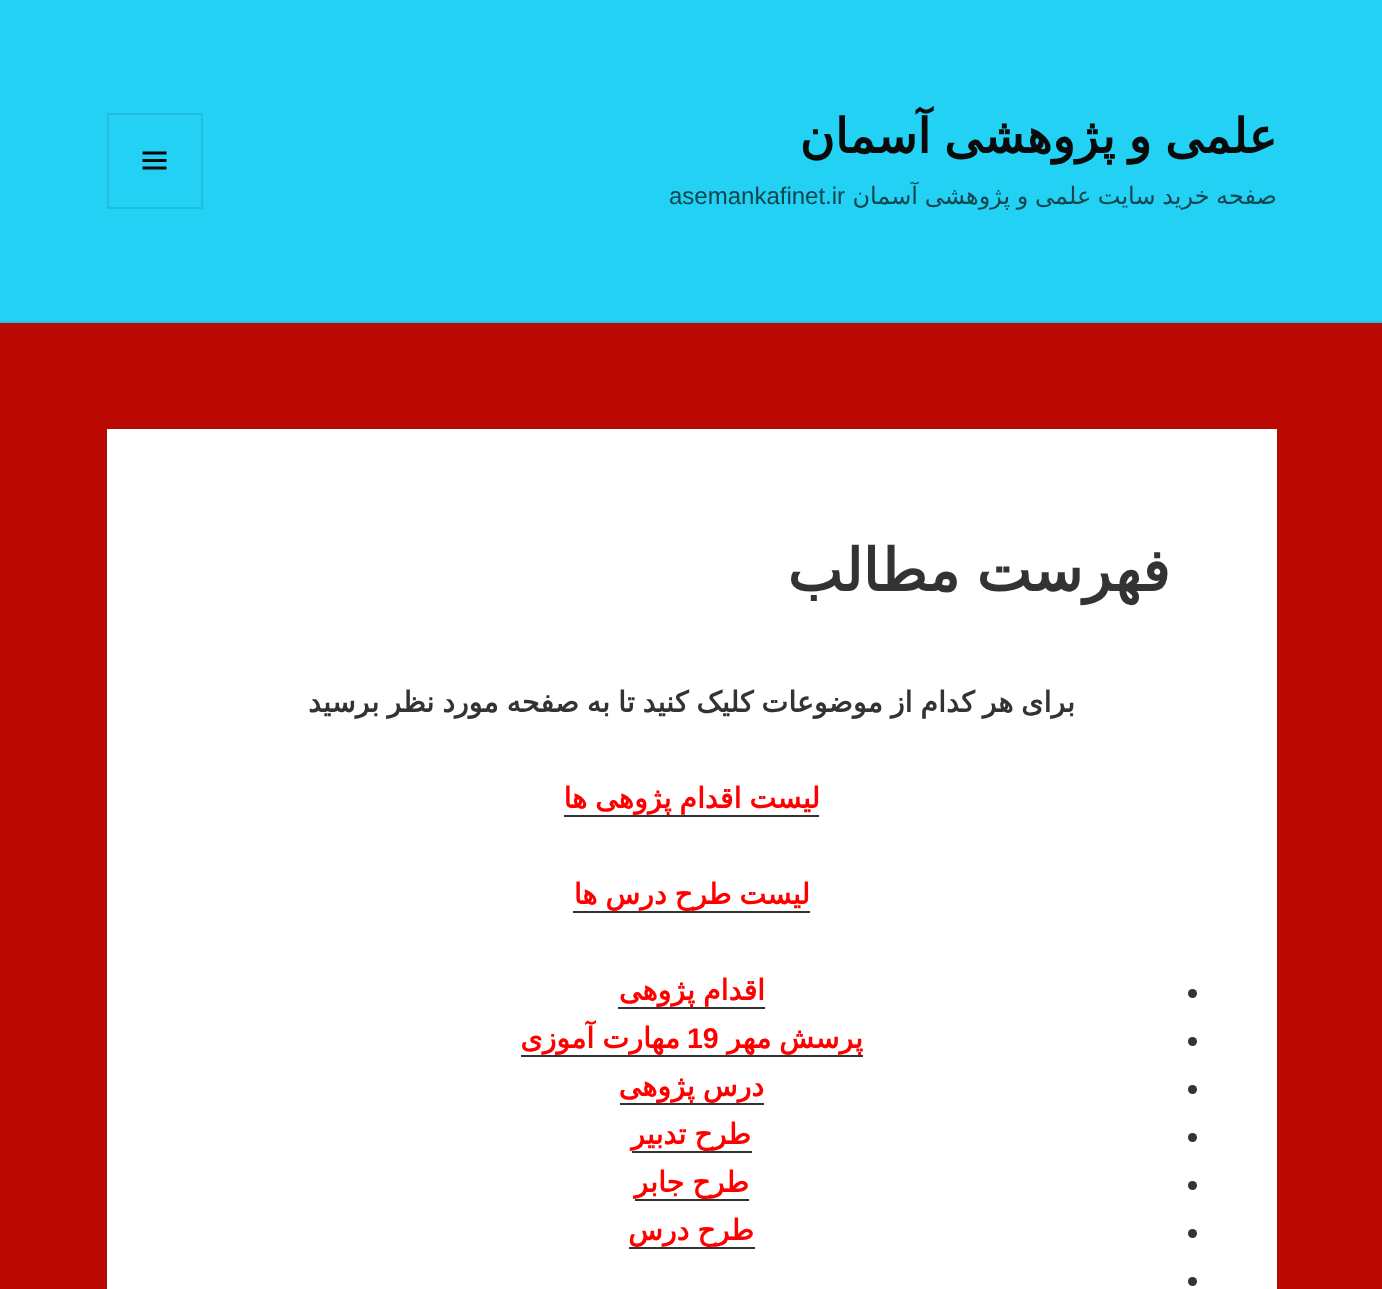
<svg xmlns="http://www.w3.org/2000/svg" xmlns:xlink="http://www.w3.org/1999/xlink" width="1382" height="1289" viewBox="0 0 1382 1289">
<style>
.cls-1{font:bold 48px DejaVu Sans;direction:rtl;fill:#0a0a0a}
.cls-2{font:24px DejaVu Sans;direction:rtl;fill:#114650}
.cls-3{font:24px Liberation Sans;fill:#114650}
.cls-4{font:bold 58.5px DejaVu Sans;direction:rtl;fill:#333333}
.cls-5{font:bold 28.5px DejaVu Sans;direction:rtl;fill:#333333}
.cls-6{font:bold 28.5px DejaVu Sans;direction:rtl;fill:#ff0000}
.cls-7{font:bold 28.5px Liberation Sans;fill:#ff0000}
</style>
<rect width="100%" height="100%" fill="#ba0903"/>
<rect fill="#22d1f4" x="0" y="0" width="1382" height="321"/>
<rect fill="#24c1e1" x="0" y="321" width="1382" height="2"/>
<rect fill="none" stroke="#20bddd" stroke-width="2" x="108" y="114" width="94" height="94"/>
<image xlink:href="image0.png" x="142" y="151" width="25" height="19"/>
<rect fill="#000000" fill-opacity="0.15" filter="blur(1px)" x="107" y="429" width="1170" height="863"/>
<rect fill="#ffffff" x="107" y="429" width="1170" height="860"/>
<rect fill="#333333" x="564" y="815" width="255" height="2"/>
<rect fill="#333333" x="573" y="911" width="237" height="2"/>
<circle fill="#333333" cx="1192.5" cy="993.5" r="4.5"/>
<rect fill="#333333" x="618" y="1007" width="147" height="2"/>
<circle fill="#333333" cx="1192.5" cy="1041.5" r="4.5"/>
<rect fill="#333333" x="521" y="1055" width="342" height="2"/>
<circle fill="#333333" cx="1192.5" cy="1089.5" r="4.5"/>
<rect fill="#333333" x="620" y="1103" width="144" height="2"/>
<circle fill="#333333" cx="1192.5" cy="1137.5" r="4.5"/>
<rect fill="#333333" x="632" y="1151" width="120" height="2"/>
<circle fill="#333333" cx="1192.5" cy="1185.5" r="4.5"/>
<rect fill="#333333" x="635" y="1199" width="114" height="2"/>
<circle fill="#333333" cx="1192.5" cy="1233.5" r="4.5"/>
<rect fill="#333333" x="629" y="1247" width="126" height="2"/>
<circle fill="#333333" cx="1192.5" cy="1281.5" r="4.5"/>
<text class="cls-1" x="1277" y="153" word-spacing="-2">علمی و پژوهشی آسمان</text>
<text class="cls-2" x="1277" y="204" word-spacing="-1">صفحه خرید سایت علمی و پژوهشی آسمان</text>
<text class="cls-3" x="669" y="204">asemankafinet.ir</text>
<text class="cls-4" x="1170" y="591" word-spacing="-2">فهرست مطالب</text>
<text class="cls-5" x="1075" y="712" word-spacing="-1.1">برای هر کدام از موضوعات کلیک کنید تا به صفحه مورد نظر برسید</text>
<text class="cls-6" x="820" y="808" word-spacing="-1.1">لیست اقدام پژوهی ها</text>
<text class="cls-6" x="810" y="904" word-spacing="-1.1">لیست طرح درس ها</text>
<text class="cls-6" x="765" y="1000" word-spacing="-1.1">اقدام پژوهی</text>
<text class="cls-6" x="863" y="1048" word-spacing="-1.1">پرسش مهر</text>
<text class="cls-7" x="687" y="1048">19</text>
<text class="cls-6" x="680" y="1048" word-spacing="-1">مهارت آموزی</text>
<text class="cls-6" x="764" y="1096" word-spacing="-1.1">درس پژوهی</text>
<text class="cls-6" x="751" y="1144" word-spacing="-1.1">طرح تدبیر</text>
<text class="cls-6" x="749" y="1192" word-spacing="-1.1">طرح جابر</text>
<text class="cls-6" x="754" y="1240" word-spacing="-1.1">طرح درس</text>
</svg>
